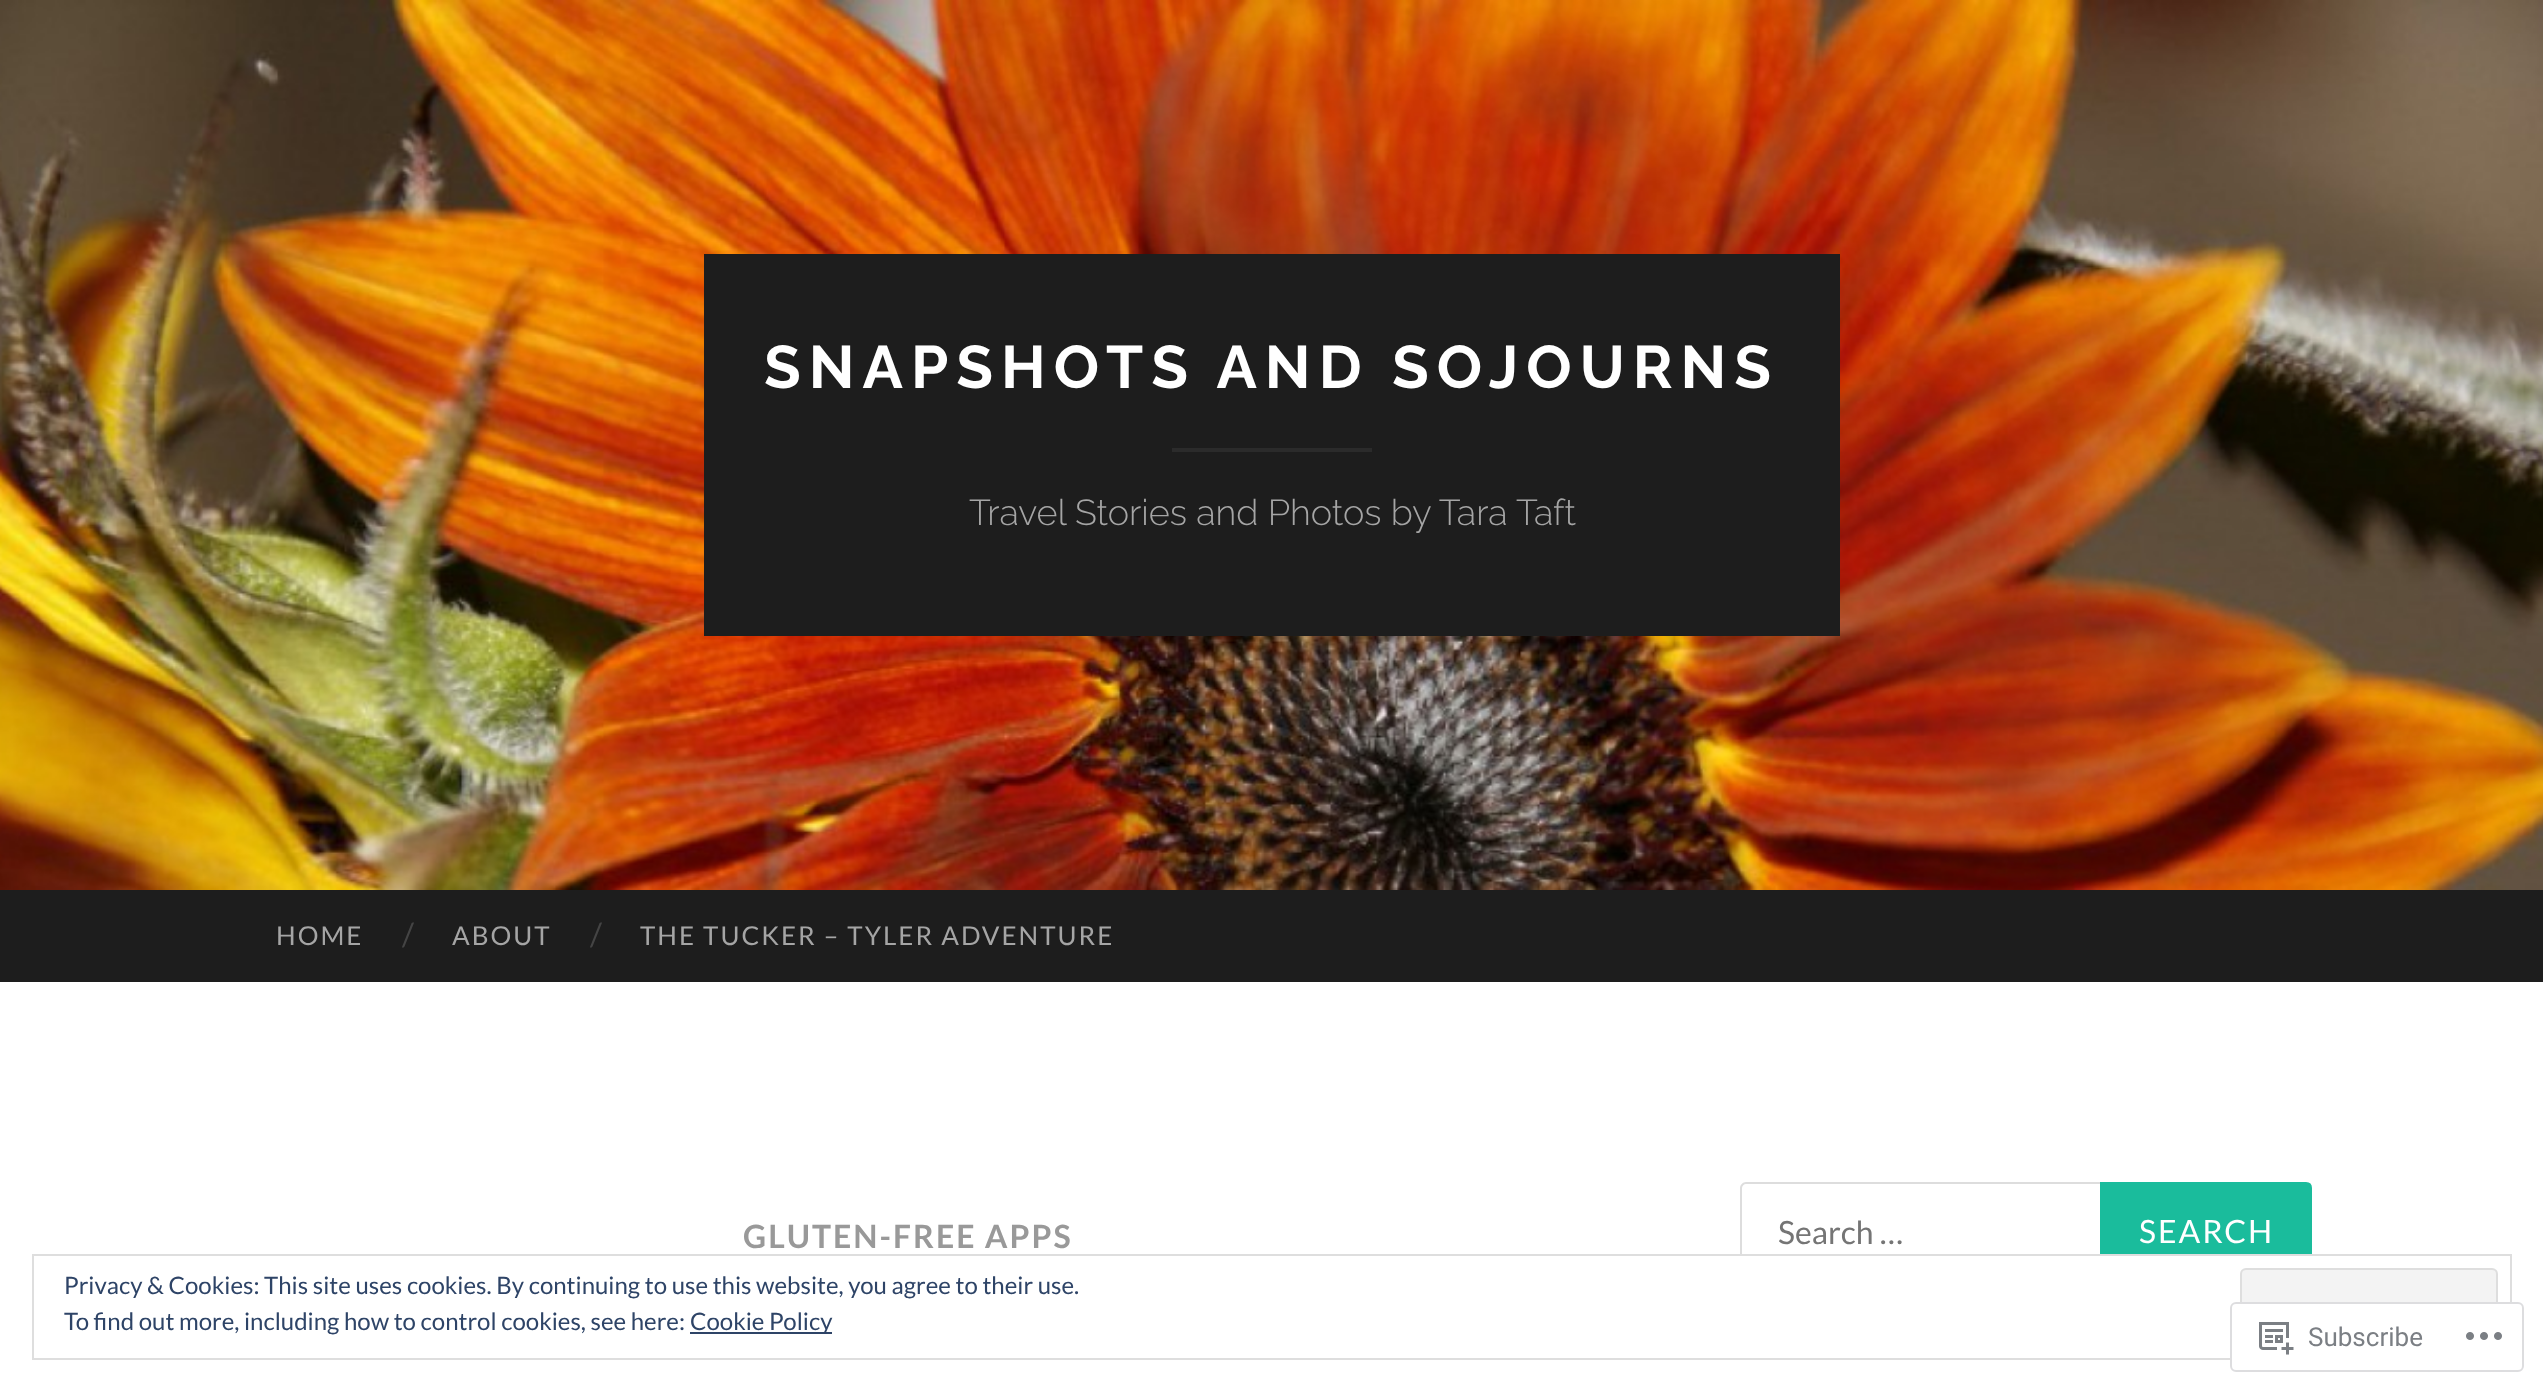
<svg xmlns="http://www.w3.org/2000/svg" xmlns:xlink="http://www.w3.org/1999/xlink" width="2543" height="1391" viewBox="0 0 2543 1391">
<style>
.cls-1{font:bold 60px Raleway;letter-spacing:8px;fill:#ffffff}
.cls-2{font:300 36px Raleway;fill:#a5a5a5}
.cls-3{font:26px Lato;letter-spacing:2px;fill:#a5a5a5}
.cls-4{font:32px Lato;fill:#444444}
.cls-5{font:bold 32px Lato;letter-spacing:2px;fill:#999999}
.cls-6{font:32px Lato;fill:#757575}
.cls-7{font:32px Lato;letter-spacing:2px;fill:#ffffff}
.cls-8{font:24px Lato;fill:#2e4467}
.cls-9{font:26px Roboto;fill:#7b7f84}
</style>
<rect width="100%" height="100%" fill="#ffffff"/>
<image xlink:href="image0.png" x="0" y="0" width="2543" height="890"/>
<rect fill="#1d1d1d" x="704" y="254" width="1136" height="382"/>
<rect fill="#2b2b2b" x="1172" y="448" width="200" height="4"/>
<rect fill="#1d1d1d" x="0" y="890" width="2543" height="92"/>
<path fill="#dddddd" fill-rule="evenodd" d="M1746 1182H2306V1282H1746C1743 1282 1740 1279 1740 1276V1188C1740 1185 1743 1182 1746 1182ZM1746 1184H2306V1280H1746C1744 1280 1742 1278 1742 1276V1188C1742 1186 1744 1184 1746 1184Z"/>
<path fill="#1abc9c" stroke="#1abc9c" stroke-width="2" d="M2101 1183H2306C2309 1183 2311 1185 2311 1188V1276C2311 1279 2309 1281 2306 1281H2101Z"/>
<rect fill="#ffffff" x="1740" y="1256" width="572" height="26"/>
<rect fill="none" stroke="#dedede" stroke-width="2" x="33" y="1255" width="2478" height="104"/>
<rect fill="#f3f3f3" stroke="#dedede" stroke-width="2" x="2241" y="1269" width="256" height="76" rx="5"/>
<rect fill="#2e4467" x="690" y="1332" width="142" height="2"/>
<rect fill="#ffffff" fill-opacity="0.98" x="2230" y="1302" width="294" height="70" rx="6"/>
<rect fill="none" stroke="#dcdcde" stroke-opacity="0.98" stroke-width="2" x="2231" y="1303" width="292" height="68" rx="5"/>
<image xlink:href="image1.png" x="2259" y="1322" width="35" height="33"/>
<image xlink:href="image2.png" x="2466" y="1332" width="36" height="8"/>
<text class="cls-1" x="764" y="388">SNAPSHOTS AND SOJOURNS</text>
<text class="cls-2" x="969" y="525">Travel Stories and Photos by Tara Taft</text>
<text class="cls-3" x="276" y="945">HOME</text>
<text class="cls-4" x="402" y="946">/</text>
<text class="cls-3" x="452" y="945">ABOUT</text>
<text class="cls-4" x="590" y="946">/</text>
<text class="cls-3" x="640" y="945">THE TUCKER – TYLER ADVENTURE</text>
<text class="cls-5" x="743" y="1248">GLUTEN-FREE APPS</text>
<text class="cls-6" x="1778" y="1244">Search …</text>
<text class="cls-7" x="2139" y="1243">SEARCH</text>
<text class="cls-8"><tspan x="64" y="1294">Privacy &amp; Cookies: This site uses cookies. By continuing to use this website, you agree to their use.</tspan><tspan x="64" y="1330">To find out more, including how to control cookies, see here:</tspan></text>
<text class="cls-8" x="690" y="1330">Cookie Policy</text>
<text class="cls-9" x="2308" y="1346">Subscribe</text>
</svg>
